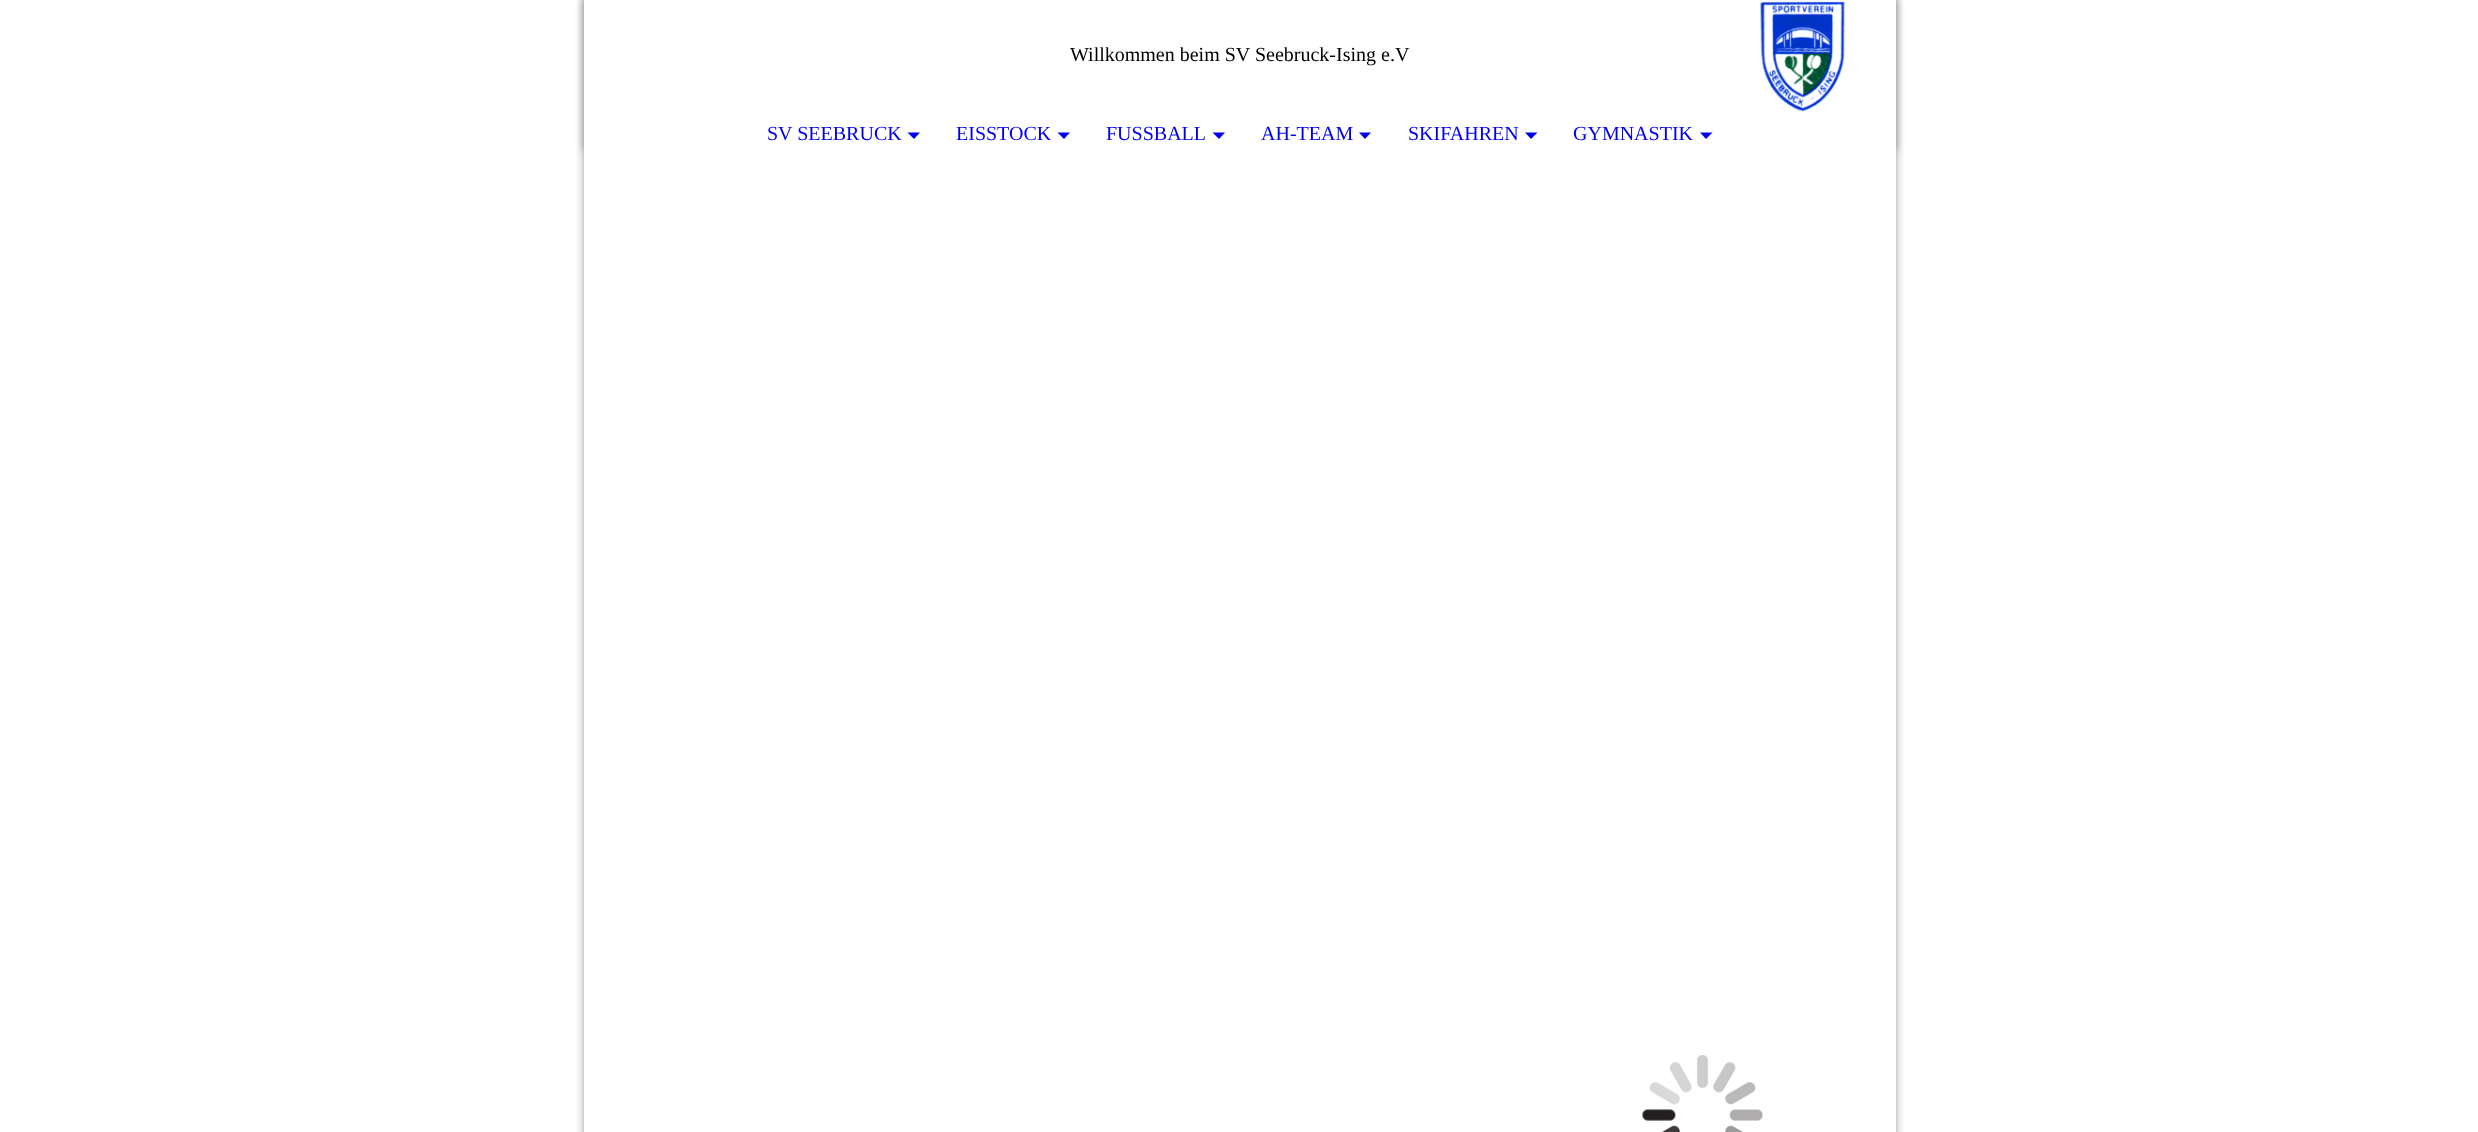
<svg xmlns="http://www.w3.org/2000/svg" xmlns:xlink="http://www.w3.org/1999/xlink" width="2478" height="1132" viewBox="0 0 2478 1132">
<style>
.cls-1{font:20px Liberation Serif;fill:#000000}
.cls-2{font:20px Liberation Serif;fill:#0000ee}
</style>
<defs>
<clipPath id="clip1"><path d="M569 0H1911V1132H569ZM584 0H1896V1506H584Z" clip-rule="evenodd"/></clipPath>
<clipPath id="clip2"><path d="M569 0H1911V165H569ZM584 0H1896V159H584Z" clip-rule="evenodd"/></clipPath>
</defs>
<rect width="100%" height="100%" fill="#ffffff"/>
<g clip-path="url(#clip1)">
<rect fill="#999999" filter="blur(4.5px)" x="584" y="0" width="1312" height="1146"/>
</g>
<g clip-path="url(#clip2)">
<rect fill="#999999" filter="blur(4.5px)" x="584" y="-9" width="1312" height="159"/>
</g>
<image xlink:href="image0.png" x="1759" y="1" width="86" height="111"/>
<path fill="#0000ee" d="M907.5 132.5H920L914 139Z"/>
<path fill="#0000ee" d="M1057.5 132.5H1070L1064 139Z"/>
<path fill="#0000ee" d="M1212.5 132.5H1225L1219 139Z"/>
<path fill="#0000ee" d="M1359 132.5H1371L1365 139Z"/>
<path fill="#0000ee" d="M1525 132.5H1537.5L1531 139Z"/>
<path fill="#0000ee" d="M1700 132.5H1712.5L1706 139Z"/>
<image xlink:href="image1.png" x="1642" y="1055" width="121" height="77"/>
<text class="cls-1" x="1070" y="61">Willkommen beim SV Seebruck-Ising e.V</text>
<text class="cls-2" x="767" y="140">SV SEEBRUCK</text>
<text class="cls-2" x="956" y="140">EISSTOCK</text>
<text class="cls-2" x="1106" y="140">FUSSBALL</text>
<text class="cls-2" x="1261" y="140">AH-TEAM</text>
<text class="cls-2" x="1408" y="140">SKIFAHREN</text>
<text class="cls-2" x="1573" y="140">GYMNASTIK</text>
</svg>
